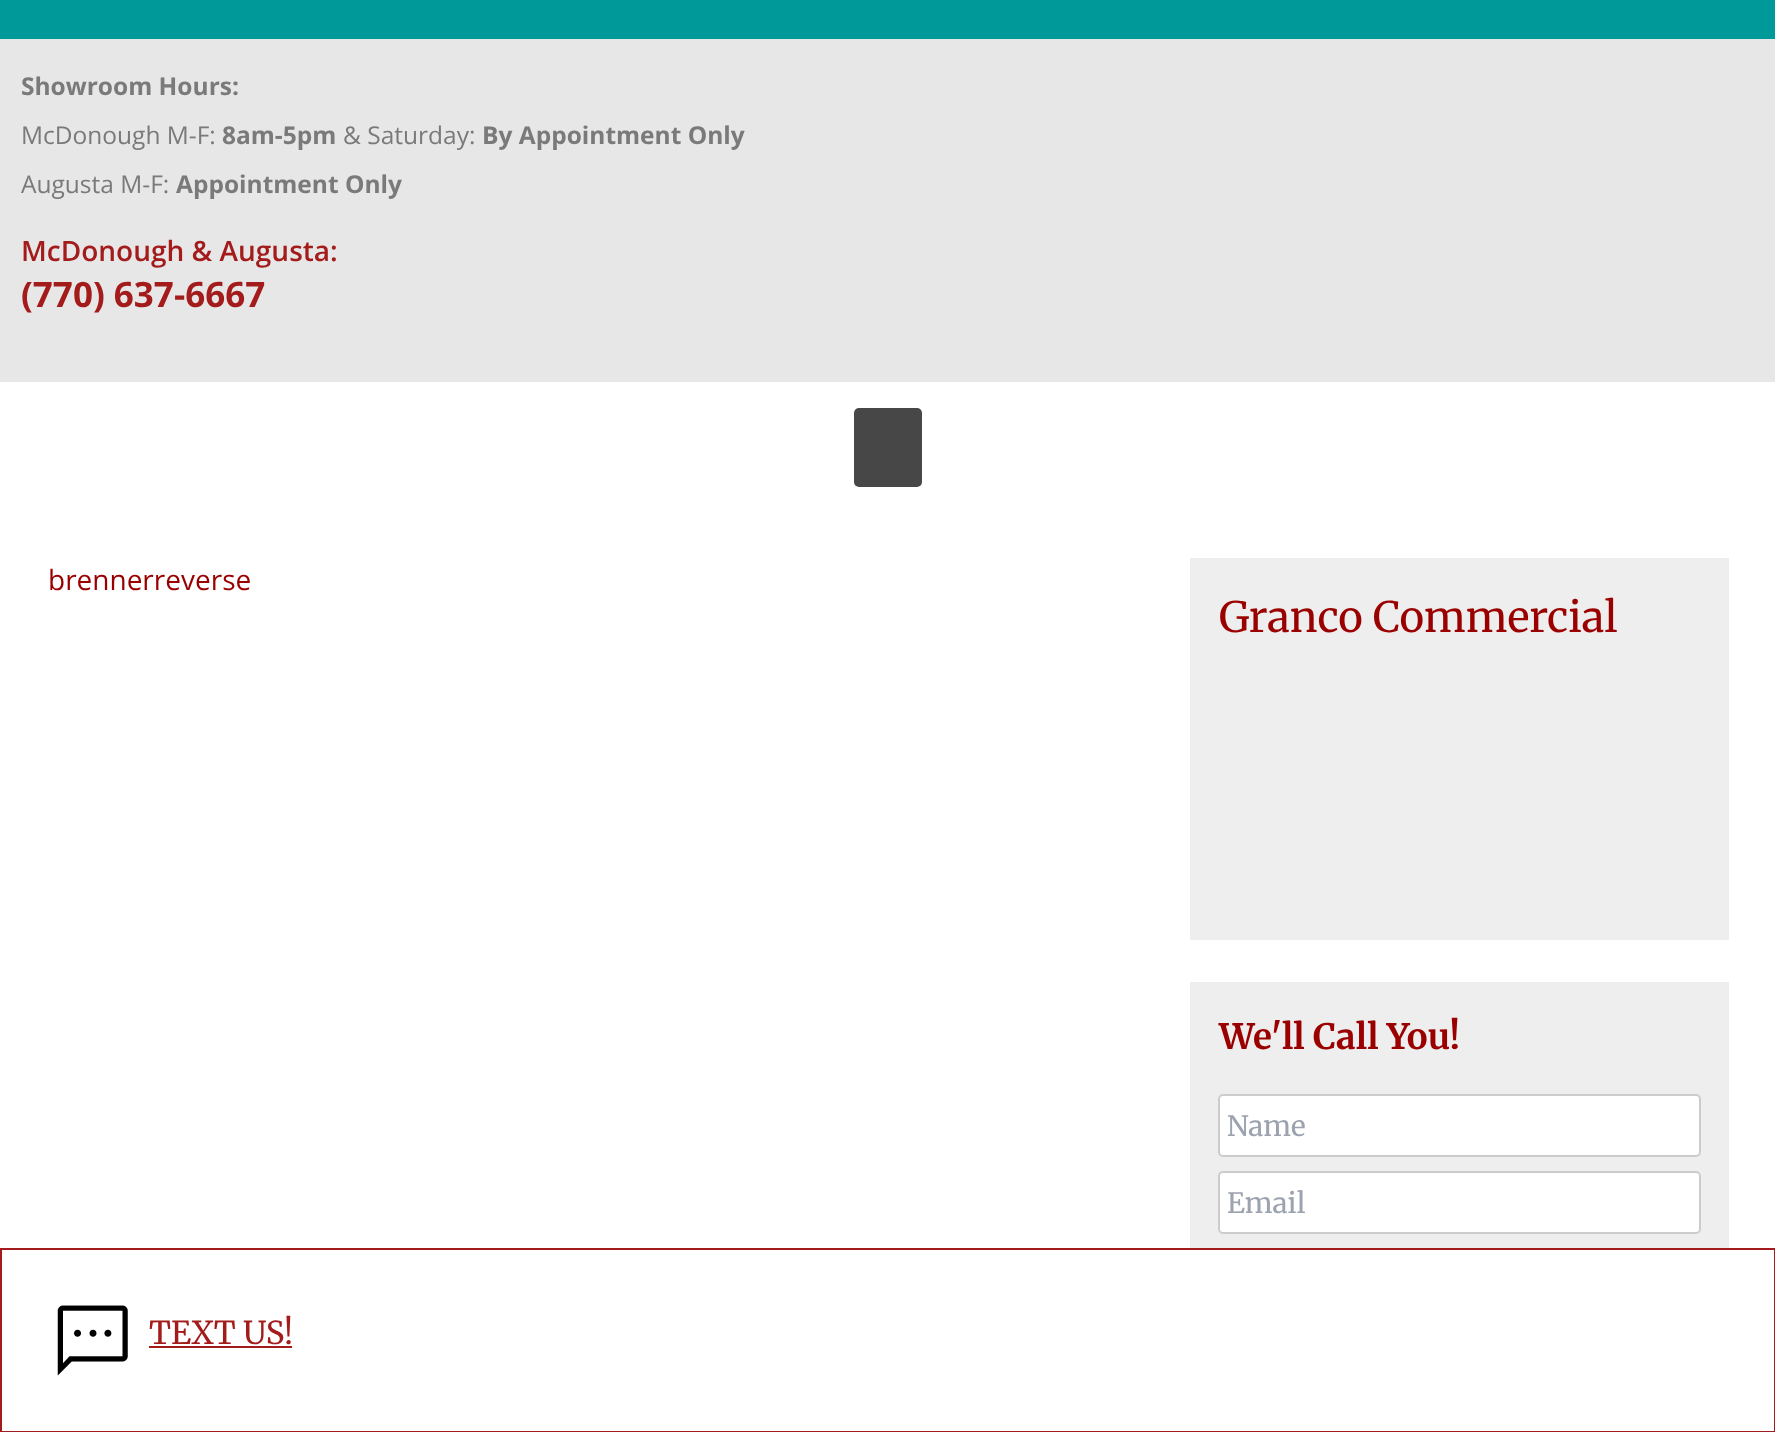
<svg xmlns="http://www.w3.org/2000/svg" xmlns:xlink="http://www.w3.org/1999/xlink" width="1775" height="1432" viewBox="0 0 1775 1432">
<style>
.cls-1{font:bold 24.5px Open Sans;fill:#7a7a7a}
.cls-2{font:24.5px 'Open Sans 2';fill:#7a7a7a}
.cls-3{font:600 28px Open Sans;fill:#a31b1b}
.cls-4{font:bold 35px Open Sans;fill:#a31b1b}
.cls-5{font:28px Open Sans;fill:#9b0000}
.cls-6{font:42px Merriweather;fill:#9b0000}
.cls-7{font:bold 35px Merriweather;fill:#9b0000}
.cls-8{font:28px Merriweather;fill:#9ca3af}
.cls-9{font:31.5px Merriweather;fill:#a31b1b}
</style>
<rect width="100%" height="100%" fill="#ffffff"/>
<rect fill="#009999" x="0" y="0" width="1775" height="39"/>
<rect fill="#e7e7e7" x="0" y="39" width="1775" height="343"/>
<rect fill="#474747" x="854" y="408" width="68" height="79" rx="5"/>
<rect fill="#eeeeee" x="1190" y="558" width="539" height="382"/>
<rect fill="#eeeeee" x="1190" y="982" width="539" height="266"/>
<rect fill="#ffffff" stroke="#cccccc" stroke-width="2" x="1219" y="1095" width="481" height="61" rx="4"/>
<rect fill="#ffffff" stroke="#cccccc" stroke-width="2" x="1219" y="1172" width="481" height="61" rx="4"/>
<rect fill="none" stroke="#a31b1b" stroke-width="2" x="1" y="1249" width="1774" height="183"/>
<image xlink:href="image0.png" x="57" y="1305" width="71" height="71"/>
<rect fill="#a31b1b" x="149" y="1346" width="143" height="2"/>
<text class="cls-1" x="21" y="95">Showroom Hours:</text>
<text class="cls-2" x="21" y="144">McDonough M-F:</text>
<text class="cls-1" x="222" y="144">8am-5pm</text>
<text class="cls-2" x="343" y="144">&amp; Saturday:</text>
<text class="cls-1" x="482" y="144">By Appointment Only</text>
<text class="cls-2" x="21" y="193">Augusta M-F:</text>
<text class="cls-1" x="176" y="193">Appointment Only</text>
<text class="cls-3" x="21" y="261">McDonough &amp; Augusta:</text>
<text class="cls-4" x="21" y="307">(770) 637-6667</text>
<text class="cls-5" x="48" y="590">brennerreverse</text>
<text class="cls-6" x="1219" y="632">Granco Commercial</text>
<text class="cls-7" x="1219" y="1049">We'll Call You!</text>
<text class="cls-8" x="1227" y="1136">Name</text>
<text class="cls-8" x="1227" y="1213">Email</text>
<text class="cls-9" x="149" y="1344">TEXT US!</text>
</svg>
